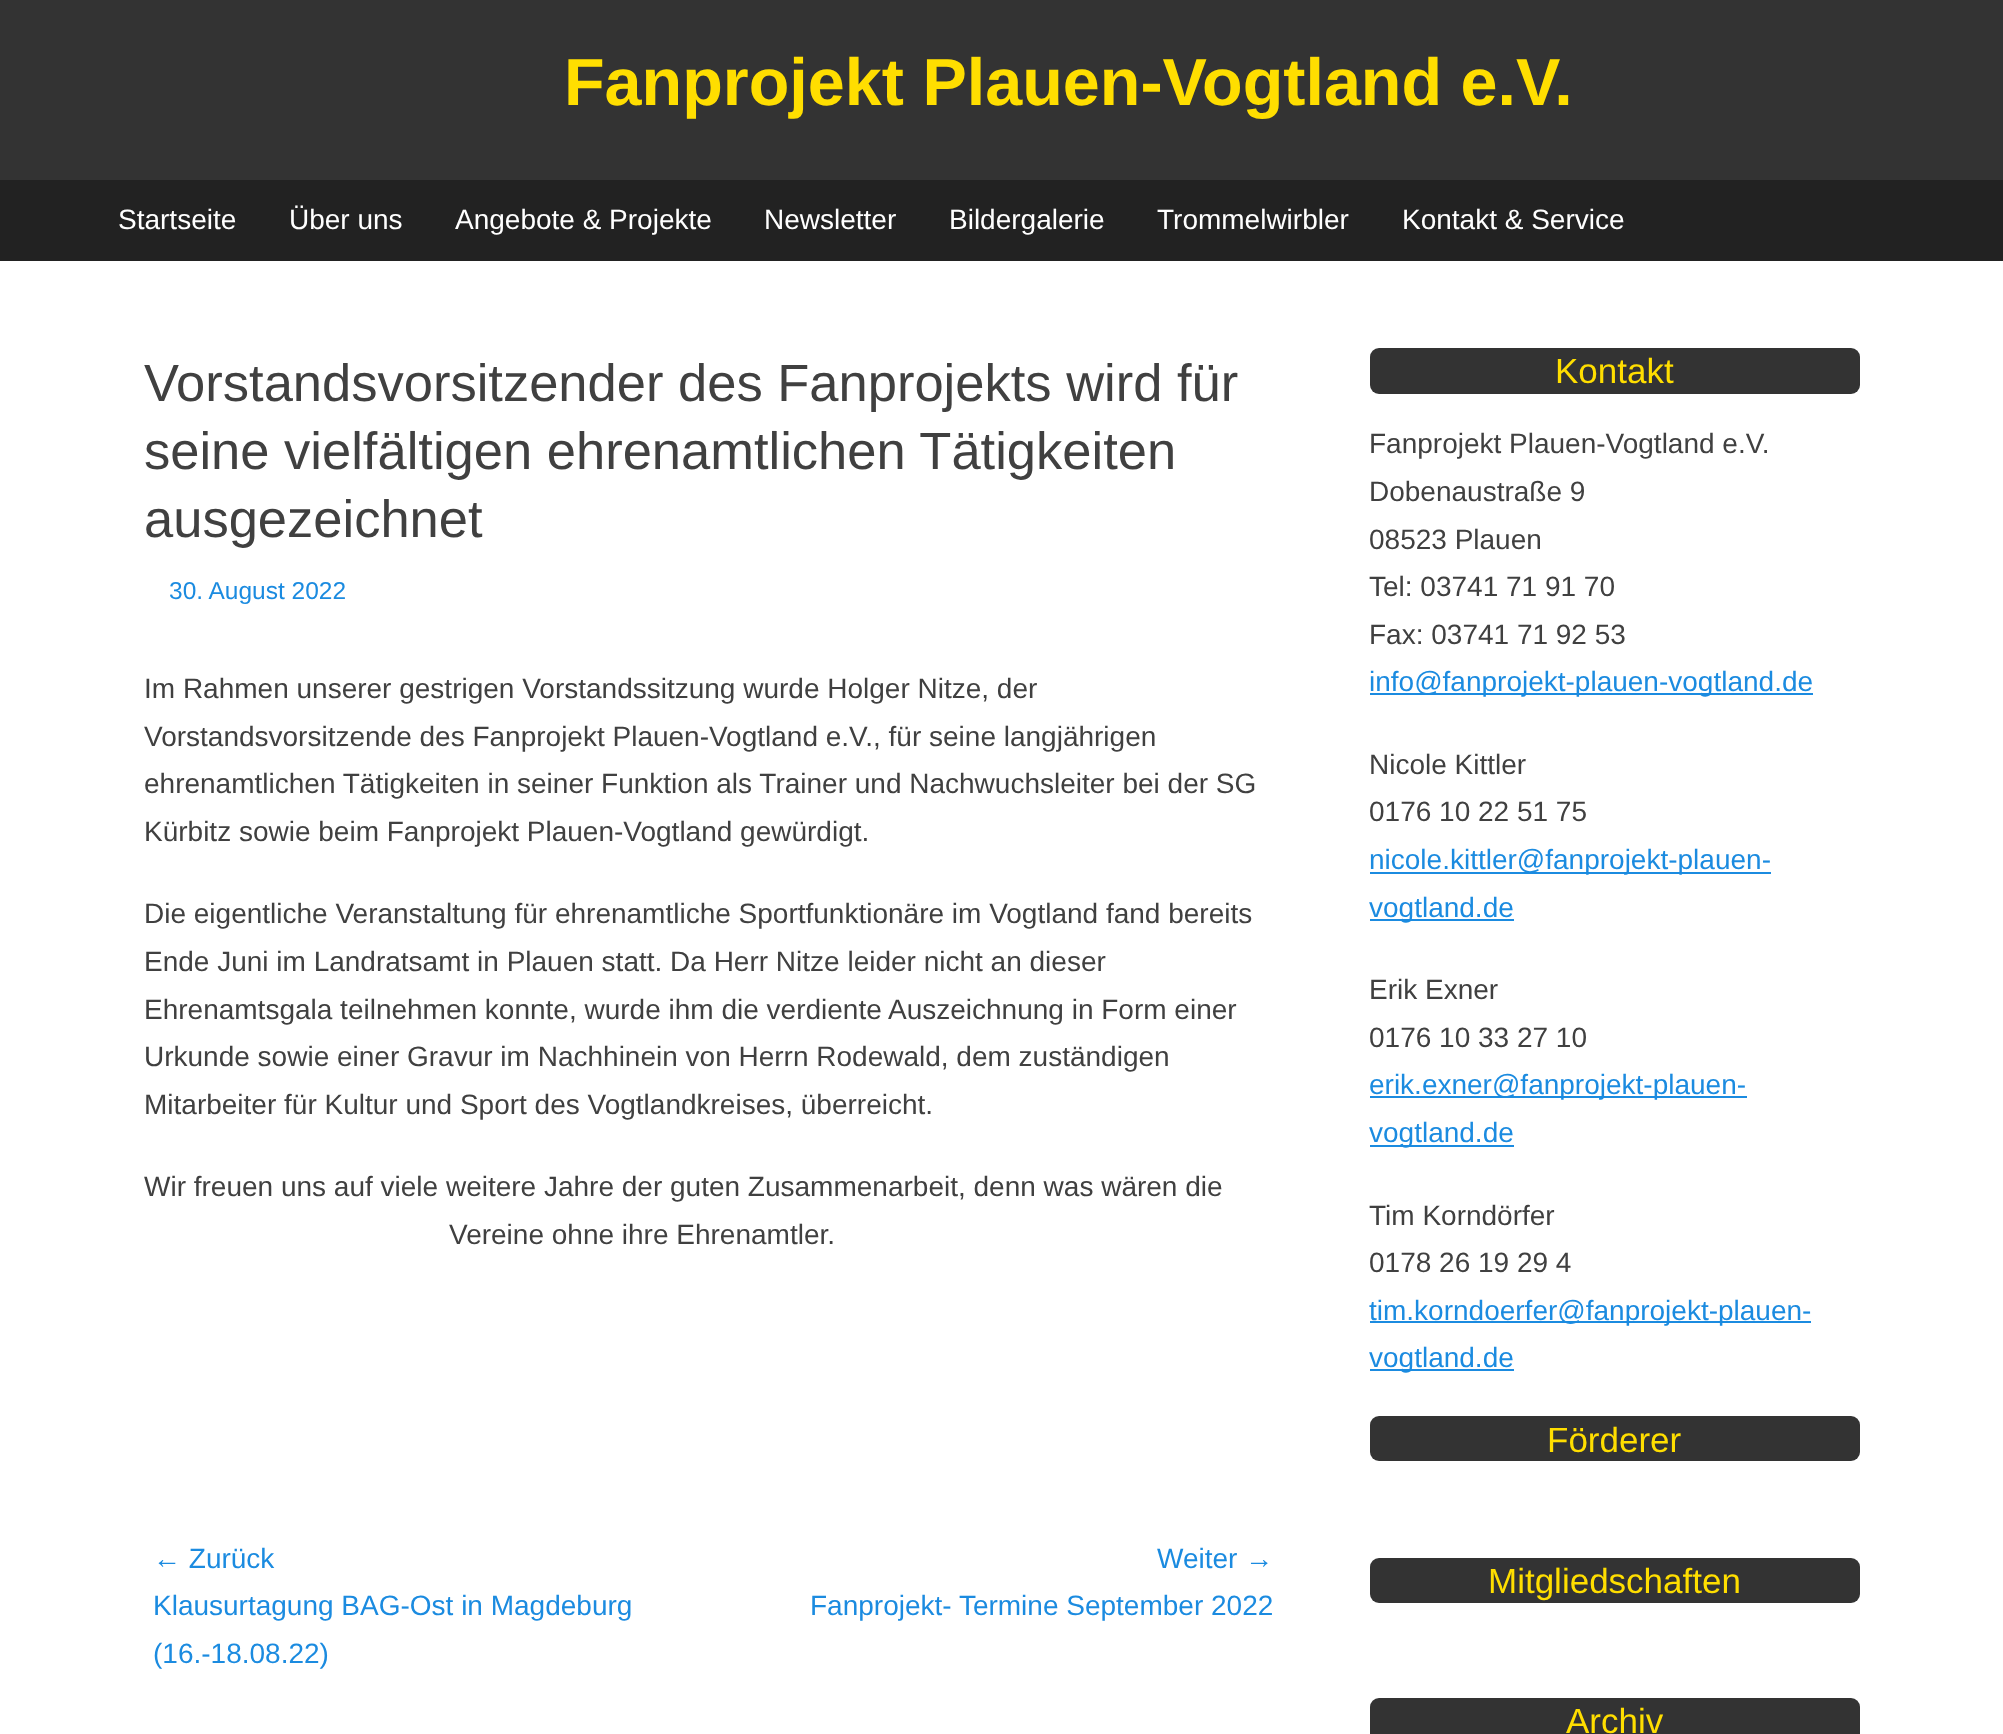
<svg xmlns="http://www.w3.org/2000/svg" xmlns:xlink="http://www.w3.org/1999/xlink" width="2003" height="1734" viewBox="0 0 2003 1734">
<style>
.cls-1{font:bold 66.5px Liberation Sans;fill:#ffde00}
.cls-2{font:28px Liberation Sans;fill:#ffffff}
.cls-3{font:52.5px Liberation Sans;fill:#404040}
.cls-4{font:24.5px Liberation Sans;fill:#1b8be0}
.cls-5{font:28px Liberation Sans;fill:#404040}
.cls-6{font:28px Liberation Sans;fill:#1b8be0}
.cls-7{font:35px Liberation Sans;fill:#ffde00}
</style>
<rect width="100%" height="100%" fill="#333333"/>
<rect fill="#222222" x="0" y="180" width="2003" height="81"/>
<rect fill="#ffffff" x="0" y="261" width="2003" height="1473"/>
<rect fill="#333333" x="1370" y="348" width="490" height="46" rx="9"/>
<rect fill="#1b8be0" x="1370" y="693" width="443" height="2"/>
<rect fill="#1b8be0" x="1370" y="872" width="401" height="2"/>
<rect fill="#1b8be0" x="1370" y="919" width="144" height="2"/>
<rect fill="#1b8be0" x="1370" y="1096" width="377" height="2"/>
<rect fill="#1b8be0" x="1370" y="1145" width="144" height="2"/>
<rect fill="#1b8be0" x="1370" y="1321" width="441" height="2"/>
<rect fill="#1b8be0" x="1370" y="1369" width="144" height="2"/>
<rect fill="#333333" x="1370" y="1416" width="490" height="45" rx="9"/>
<rect fill="#333333" x="1370" y="1558" width="490" height="45" rx="9"/>
<rect fill="#333333" x="1370" y="1698" width="490" height="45" rx="9"/>
<text class="cls-1" x="564" y="105">Fanprojekt Plauen-Vogtland e.V.</text>
<text class="cls-2" x="118" y="229">Startseite</text>
<text class="cls-2" x="289" y="229">Über uns</text>
<text class="cls-2" x="455" y="229">Angebote &amp; Projekte</text>
<text class="cls-2" x="764" y="229">Newsletter</text>
<text class="cls-2" x="949" y="229">Bildergalerie</text>
<text class="cls-2" x="1157" y="229">Trommelwirbler</text>
<text class="cls-2" x="1402" y="229">Kontakt &amp; Service</text>
<text class="cls-3"><tspan x="144" y="401">Vorstandsvorsitzender des Fanprojekts wird für</tspan><tspan x="144" y="469">seine vielfältigen ehrenamtlichen Tätigkeiten</tspan><tspan x="144" y="537">ausgezeichnet</tspan></text>
<text class="cls-4" x="169" y="599">30. August 2022</text>
<text class="cls-5"><tspan x="144" y="698">Im Rahmen unserer gestrigen Vorstandssitzung wurde Holger Nitze, der</tspan><tspan x="144" y="746">Vorstandsvorsitzende des Fanprojekt Plauen-Vogtland e.V., für seine langjährigen</tspan><tspan x="144" y="793">ehrenamtlichen Tätigkeiten in seiner Funktion als Trainer und Nachwuchsleiter bei der SG</tspan><tspan x="144" y="841">Kürbitz sowie beim Fanprojekt Plauen-Vogtland gewürdigt.</tspan></text>
<text class="cls-5"><tspan x="144" y="923">Die eigentliche Veranstaltung für ehrenamtliche Sportfunktionäre im Vogtland fand bereits</tspan><tspan x="144" y="971">Ende Juni im Landratsamt in Plauen statt. Da Herr Nitze leider nicht an dieser</tspan><tspan x="144" y="1019">Ehrenamtsgala teilnehmen konnte, wurde ihm die verdiente Auszeichnung in Form einer</tspan><tspan x="144" y="1066">Urkunde sowie einer Gravur im Nachhinein von Herrn Rodewald, dem zuständigen</tspan><tspan x="144" y="1114">Mitarbeiter für Kultur und Sport des Vogtlandkreises, überreicht.</tspan></text>
<text class="cls-5" x="144" y="1196">Wir freuen uns auf viele weitere Jahre der guten Zusammenarbeit, denn was wären die</text>
<text class="cls-5" x="449" y="1244">Vereine ohne ihre Ehrenamtler.</text>
<text class="cls-6"><tspan x="153" y="1568">← Zurück</tspan><tspan x="153" y="1615">Klausurtagung BAG-Ost in Magdeburg</tspan><tspan x="153" y="1663">(16.-18.08.22)</tspan></text>
<text class="cls-6" x="1157" y="1568">Weiter →</text>
<text class="cls-6" x="810" y="1615">Fanprojekt- Termine September 2022</text>
<text class="cls-7" x="1555" y="383">Kontakt</text>
<text class="cls-5"><tspan x="1369" y="453">Fanprojekt Plauen-Vogtland e.V.</tspan><tspan x="1369" y="501">Dobenaustraße 9</tspan><tspan x="1369" y="549">08523 Plauen</tspan><tspan x="1369" y="596">Tel: 03741 71 91 70</tspan><tspan x="1369" y="644">Fax: 03741 71 92 53</tspan></text>
<text class="cls-6" x="1369" y="691">info@fanprojekt-plauen-vogtland.de</text>
<text class="cls-5"><tspan x="1369" y="774">Nicole Kittler</tspan><tspan x="1369" y="821">0176 10 22 51 75</tspan></text>
<text class="cls-6"><tspan x="1369" y="869">nicole.kittler@fanprojekt-plauen-</tspan><tspan x="1369" y="917">vogtland.de</tspan></text>
<text class="cls-5"><tspan x="1369" y="999">Erik Exner</tspan><tspan x="1369" y="1047">0176 10 33 27 10</tspan></text>
<text class="cls-6"><tspan x="1369" y="1094">erik.exner@fanprojekt-plauen-</tspan><tspan x="1369" y="1142">vogtland.de</tspan></text>
<text class="cls-5"><tspan x="1369" y="1225">Tim Korndörfer</tspan><tspan x="1369" y="1272">0178 26 19 29 4</tspan></text>
<text class="cls-6"><tspan x="1369" y="1320">tim.korndoerfer@fanprojekt-plauen-</tspan><tspan x="1369" y="1367">vogtland.de</tspan></text>
<text class="cls-7" x="1547" y="1452">Förderer</text>
<text class="cls-7" x="1488" y="1593">Mitgliedschaften</text>
<text class="cls-7" x="1566" y="1733">Archiv</text>
</svg>
